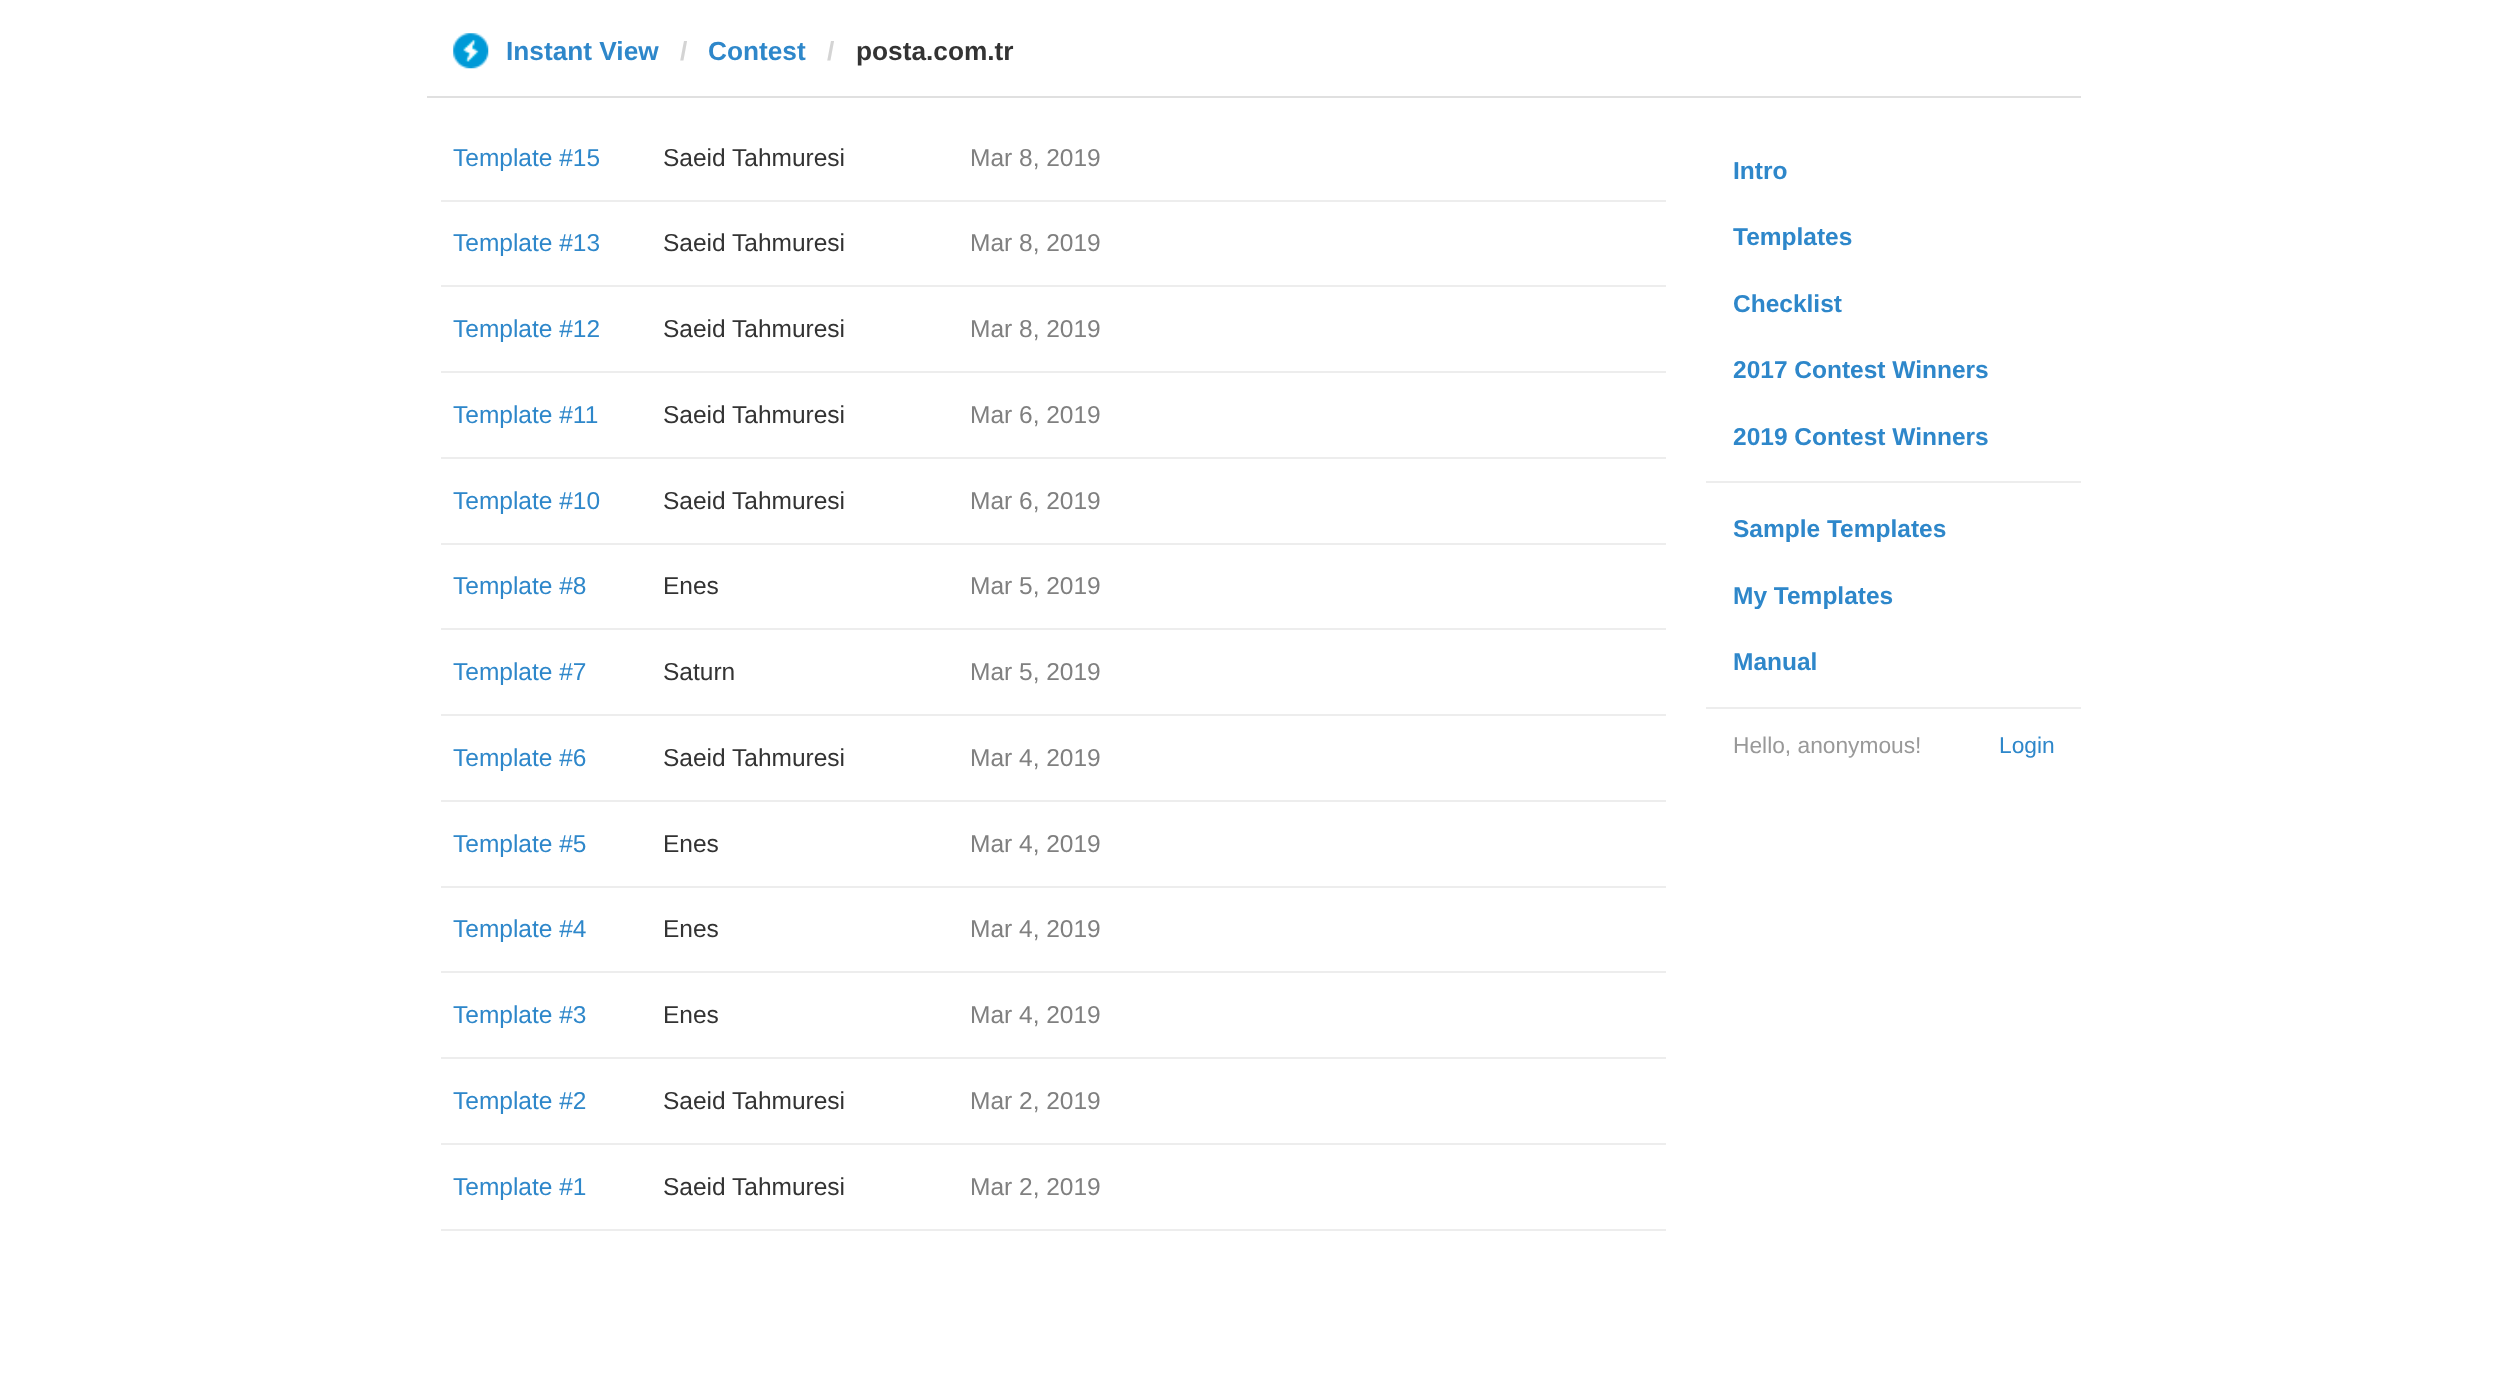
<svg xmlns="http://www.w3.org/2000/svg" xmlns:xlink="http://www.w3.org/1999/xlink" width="2507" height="1376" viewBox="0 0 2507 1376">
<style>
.cls-1{font:bold 26.25px Liberation Sans;fill:#2e87ca}
.cls-2{font:bold 26.25px Liberation Sans;fill:#d4d4d4}
.cls-3{font:bold 26.25px Liberation Sans;fill:#333333}
.cls-4{font:24.5px Liberation Sans;fill:#2e87ca}
.cls-5{font:24.5px Liberation Sans;fill:#333333}
.cls-6{font:24.5px Liberation Sans;fill:#808080}
.cls-7{font:bold 24.5px Liberation Sans;fill:#2e87ca}
.cls-8{font:22.75px Liberation Sans;fill:#999999}
.cls-9{font:22.75px Liberation Sans;fill:#2e87ca}
</style>
<rect width="100%" height="100%" fill="#ffffff"/>
<rect fill="#e0e0e0" x="427" y="96" width="1654" height="2"/>
<image xlink:href="image0.png" x="453" y="33" width="36" height="36"/>
<rect fill="#ededed" x="441" y="200" width="1225" height="2"/>
<rect fill="#ededed" x="441" y="285" width="1225" height="2"/>
<rect fill="#ededed" x="441" y="371" width="1225" height="2"/>
<rect fill="#ededed" x="441" y="457" width="1225" height="2"/>
<rect fill="#ededed" x="441" y="543" width="1225" height="2"/>
<rect fill="#ededed" x="441" y="628" width="1225" height="2"/>
<rect fill="#ededed" x="441" y="714" width="1225" height="2"/>
<rect fill="#ededed" x="441" y="800" width="1225" height="2"/>
<rect fill="#ededed" x="441" y="886" width="1225" height="2"/>
<rect fill="#ededed" x="441" y="971" width="1225" height="2"/>
<rect fill="#ededed" x="441" y="1057" width="1225" height="2"/>
<rect fill="#ededed" x="441" y="1143" width="1225" height="2"/>
<rect fill="#ededed" x="441" y="1229" width="1225" height="2"/>
<rect fill="#ededed" x="1706" y="481" width="375" height="2"/>
<rect fill="#ededed" x="1706" y="707" width="375" height="2"/>
<text class="cls-1" x="506" y="60">Instant View</text>
<text class="cls-2" x="680" y="60">/</text>
<text class="cls-1" x="708" y="60">Contest</text>
<text class="cls-2" x="827" y="60">/</text>
<text class="cls-3" x="856" y="60">posta.com.tr</text>
<text class="cls-4" x="453" y="166">Template #15</text>
<text class="cls-5" x="663" y="166">Saeid Tahmuresi</text>
<text class="cls-6" x="970" y="166">Mar 8, 2019</text>
<text class="cls-4" x="453" y="251">Template #13</text>
<text class="cls-5" x="663" y="251">Saeid Tahmuresi</text>
<text class="cls-6" x="970" y="251">Mar 8, 2019</text>
<text class="cls-4" x="453" y="337">Template #12</text>
<text class="cls-5" x="663" y="337">Saeid Tahmuresi</text>
<text class="cls-6" x="970" y="337">Mar 8, 2019</text>
<text class="cls-4" x="453" y="423">Template #11</text>
<text class="cls-5" x="663" y="423">Saeid Tahmuresi</text>
<text class="cls-6" x="970" y="423">Mar 6, 2019</text>
<text class="cls-4" x="453" y="509">Template #10</text>
<text class="cls-5" x="663" y="509">Saeid Tahmuresi</text>
<text class="cls-6" x="970" y="509">Mar 6, 2019</text>
<text class="cls-4" x="453" y="594">Template #8</text>
<text class="cls-5" x="663" y="594">Enes</text>
<text class="cls-6" x="970" y="594">Mar 5, 2019</text>
<text class="cls-4" x="453" y="680">Template #7</text>
<text class="cls-5" x="663" y="680">Saturn</text>
<text class="cls-6" x="970" y="680">Mar 5, 2019</text>
<text class="cls-4" x="453" y="766">Template #6</text>
<text class="cls-5" x="663" y="766">Saeid Tahmuresi</text>
<text class="cls-6" x="970" y="766">Mar 4, 2019</text>
<text class="cls-4" x="453" y="852">Template #5</text>
<text class="cls-5" x="663" y="852">Enes</text>
<text class="cls-6" x="970" y="852">Mar 4, 2019</text>
<text class="cls-4" x="453" y="937">Template #4</text>
<text class="cls-5" x="663" y="937">Enes</text>
<text class="cls-6" x="970" y="937">Mar 4, 2019</text>
<text class="cls-4" x="453" y="1023">Template #3</text>
<text class="cls-5" x="663" y="1023">Enes</text>
<text class="cls-6" x="970" y="1023">Mar 4, 2019</text>
<text class="cls-4" x="453" y="1109">Template #2</text>
<text class="cls-5" x="663" y="1109">Saeid Tahmuresi</text>
<text class="cls-6" x="970" y="1109">Mar 2, 2019</text>
<text class="cls-4" x="453" y="1195">Template #1</text>
<text class="cls-5" x="663" y="1195">Saeid Tahmuresi</text>
<text class="cls-6" x="970" y="1195">Mar 2, 2019</text>
<text class="cls-7" x="1733" y="179">Intro</text>
<text class="cls-7" x="1733" y="245">Templates</text>
<text class="cls-7" x="1733" y="312">Checklist</text>
<text class="cls-7" x="1733" y="378">2017 Contest Winners</text>
<text class="cls-7" x="1733" y="445">2019 Contest Winners</text>
<text class="cls-7" x="1733" y="537">Sample Templates</text>
<text class="cls-7" x="1733" y="604">My Templates</text>
<text class="cls-7" x="1733" y="670">Manual</text>
<text class="cls-8" x="1733" y="753">Hello, anonymous!</text>
<text class="cls-9" x="1999" y="753">Login</text>
</svg>
